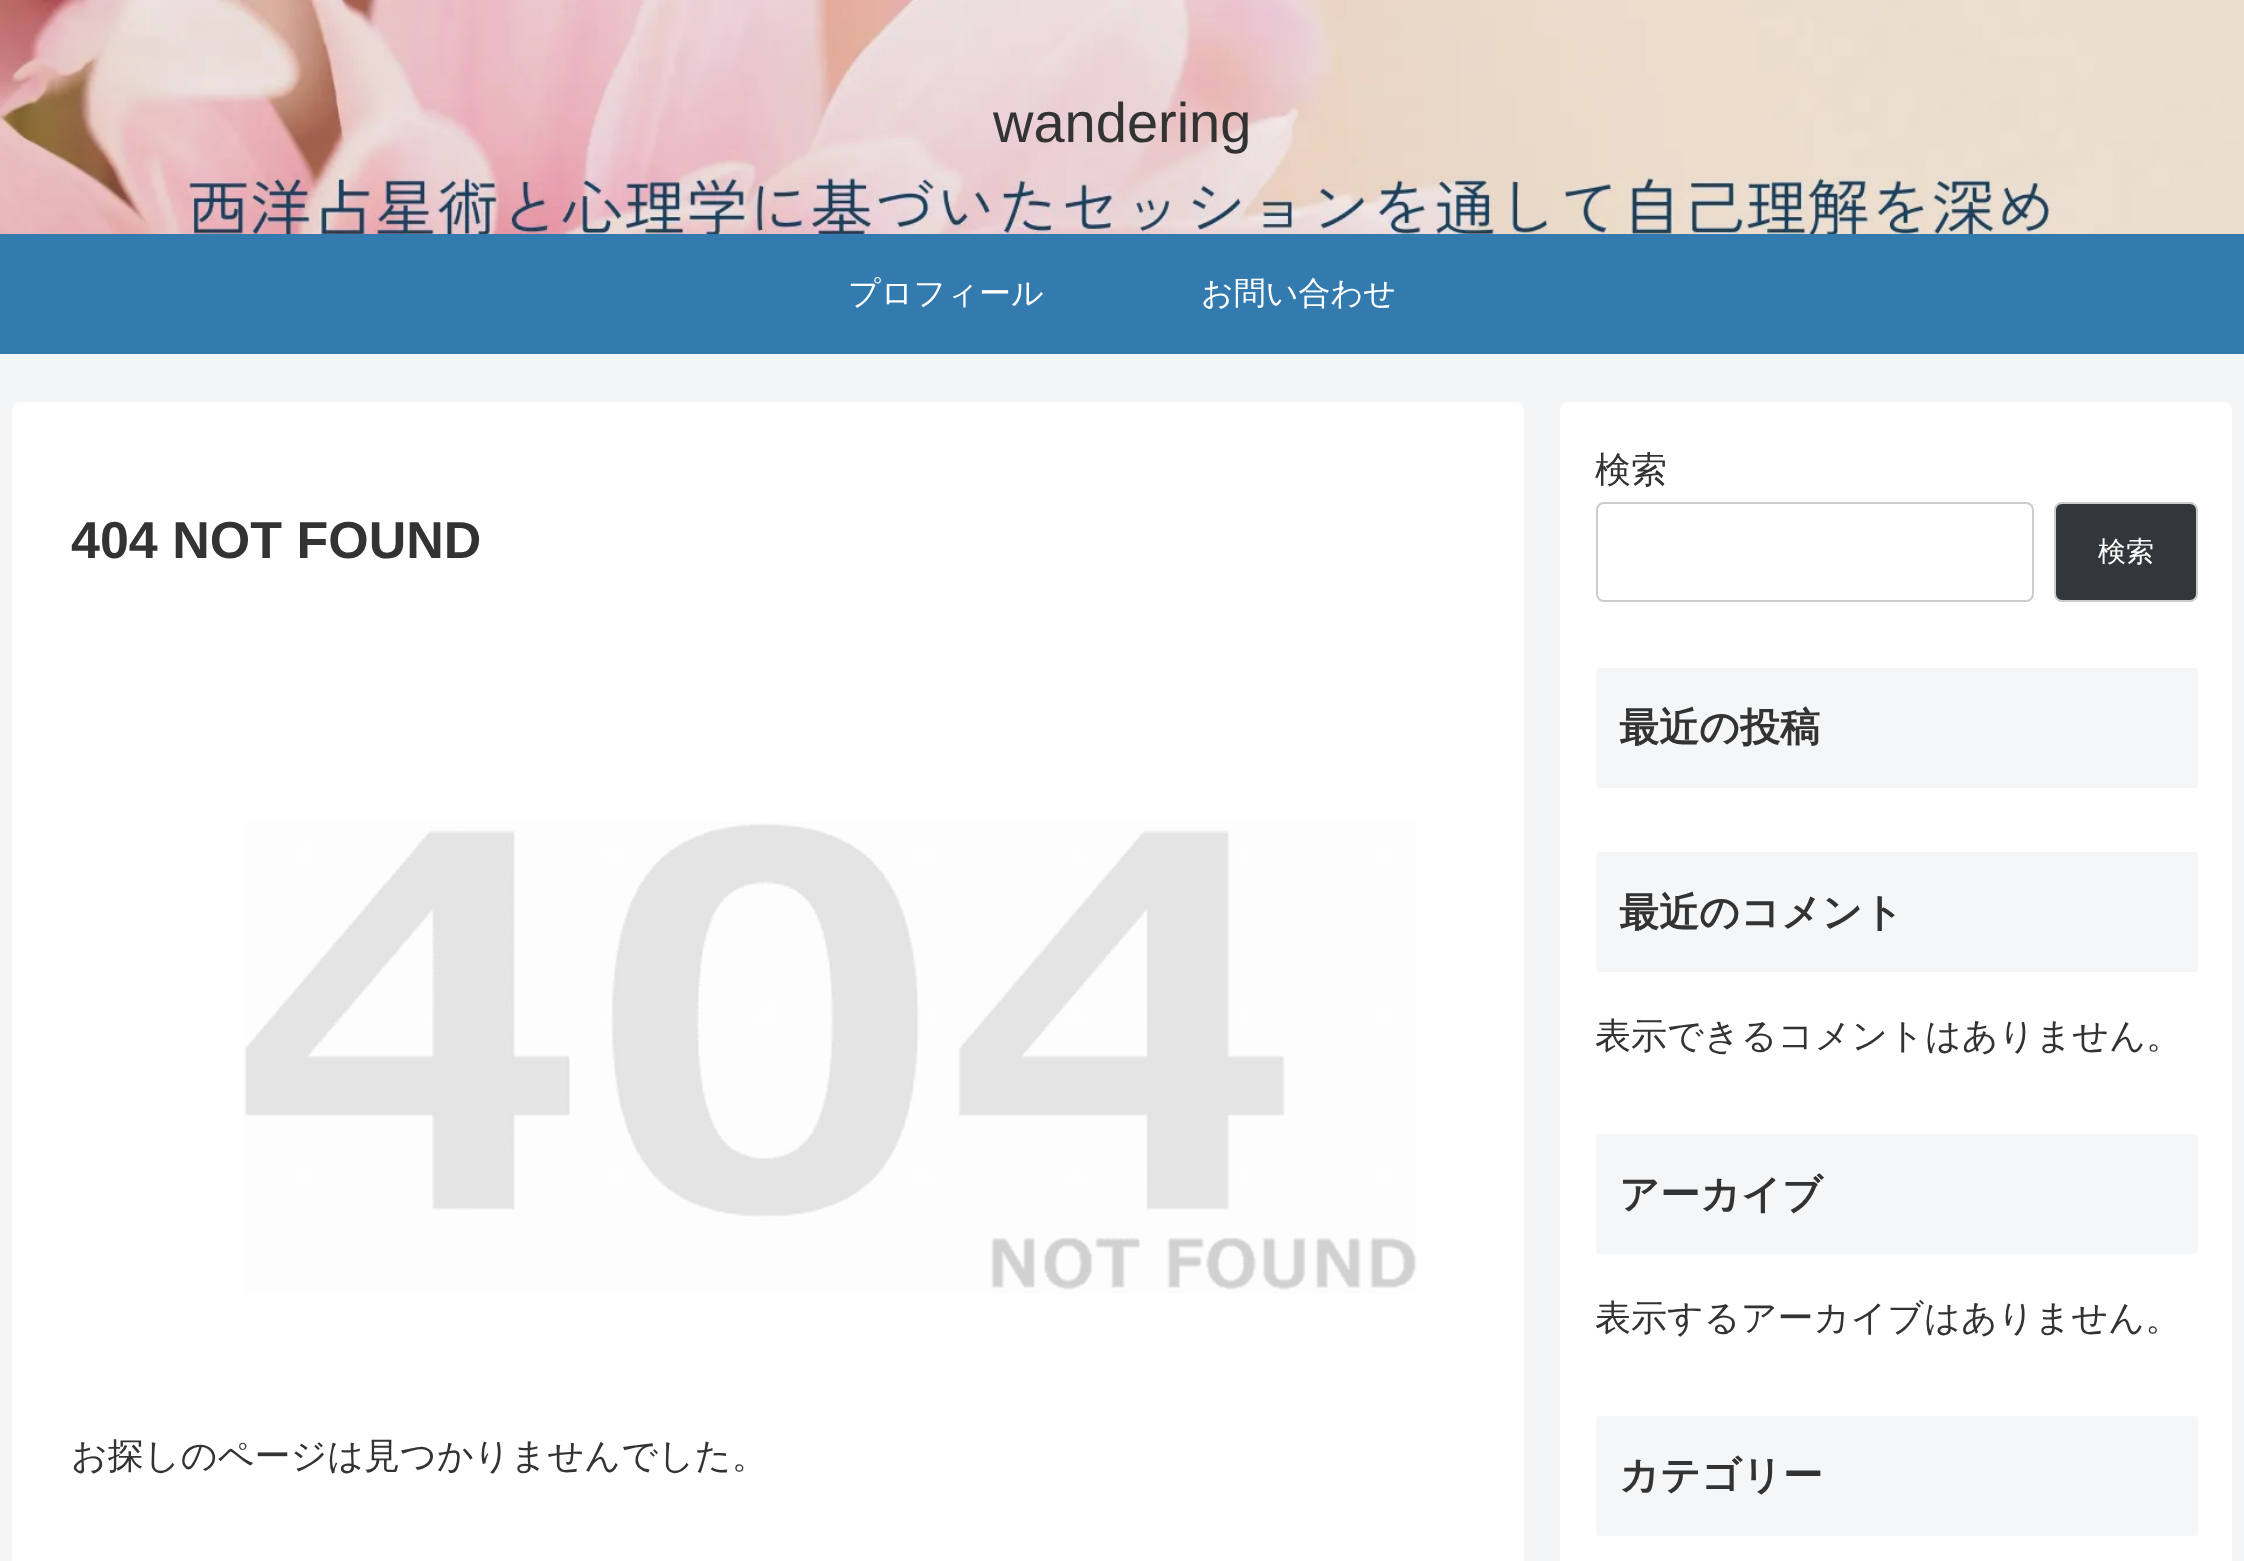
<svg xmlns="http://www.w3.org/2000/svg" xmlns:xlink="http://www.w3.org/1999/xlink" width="2244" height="1561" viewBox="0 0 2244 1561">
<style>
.cls-1{font:56px Liberation Sans;fill:#333333}
.cls-2{font:500 32px WenQuanYi Zen Hei;fill:#ffffff}
.cls-3{font:bold 52px Liberation Sans;fill:#333333}
.cls-4{font:500 36px WenQuanYi Zen Hei;fill:#333333}
.cls-5{font:500 28px WenQuanYi Zen Hei;fill:#ffffff}
.cls-6{font:bold 40px WenQuanYi Zen Hei;fill:#333333}
</style>
<rect width="100%" height="100%" fill="#f4f5f7"/>
<image xlink:href="image0.png" x="0" y="0" width="2244" height="234"/>
<rect fill="#337bae" x="0" y="234" width="2244" height="120"/>
<rect fill="#ffffff" x="12" y="402" width="1512" height="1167" rx="8"/>
<image xlink:href="image1.png" x="243" y="822" width="1174" height="472"/>
<rect fill="#ffffff" x="1560" y="402" width="672" height="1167" rx="8"/>
<rect fill="none" stroke="#cccccc" stroke-width="2" x="1597" y="503" width="436" height="98" rx="7"/>
<rect fill="#32373c" stroke="#cccccc" stroke-width="2" x="2055" y="503" width="142" height="98" rx="7"/>
<rect fill="#f5f6f7" x="1596" y="668" width="602" height="120" rx="4"/>
<rect fill="#f5f6f7" x="1596" y="852" width="602" height="120" rx="4"/>
<rect fill="#f5f6f7" x="1596" y="1134" width="602" height="120" rx="4"/>
<rect fill="#f5f6f7" x="1596" y="1416" width="602" height="120" rx="4"/>
<text class="cls-1" x="993" y="142">wandering</text>
<text class="cls-2" x="848" y="304">プロフィール</text>
<text class="cls-2" x="1201" y="304">お問い合わせ</text>
<text class="cls-3" x="71" y="558">404 NOT FOUND</text>
<text class="cls-4" x="71" y="1468">お探しのページは見つかりませんでした。</text>
<text class="cls-4" x="1595" y="482">検索</text>
<text class="cls-5" x="2098" y="561">検索</text>
<text class="cls-6" x="1619" y="741">最近の投稿</text>
<text class="cls-6" x="1619" y="926">最近のコメント</text>
<text class="cls-4" x="1595" y="1048">表示できるコメントはありません。</text>
<text class="cls-6" x="1619" y="1208">アーカイブ</text>
<text class="cls-4" x="1595" y="1330">表示するアーカイブはありません。</text>
<text class="cls-6" x="1619" y="1489">カテゴリー</text>
</svg>
